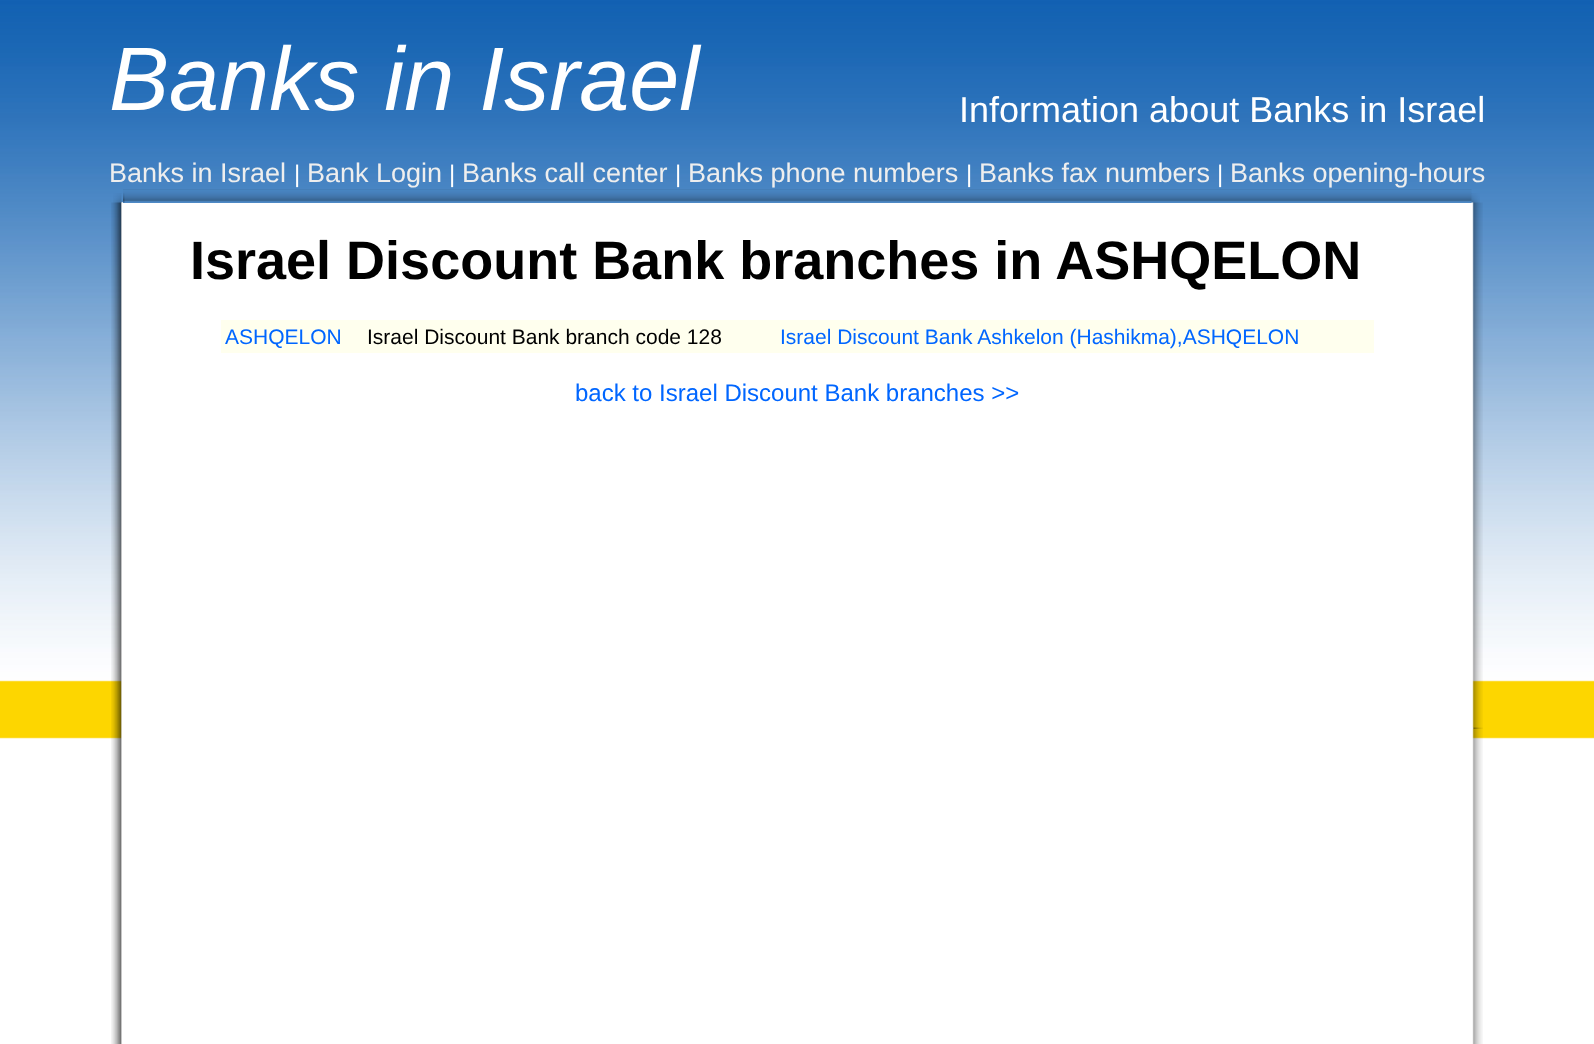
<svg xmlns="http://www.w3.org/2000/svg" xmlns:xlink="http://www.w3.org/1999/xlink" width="1594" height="1044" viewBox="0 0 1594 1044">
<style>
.cls-1{font:italic 90px Liberation Sans;fill:#ffffff}
.cls-2{font:36px Liberation Sans;fill:#ffffff}
.cls-3{font:27px Liberation Sans;fill:#eeeeee}
.cls-4{font:24px Liberation Sans;fill:#ffffff}
.cls-5{font:bold 54px Liberation Sans;fill:#000000}
.cls-6{font:21px Liberation Sans;fill:#0066ff}
.cls-7{font:21px Liberation Sans;fill:#000000}
.cls-8{font:24px Liberation Sans;fill:#0066ff}
</style>
<rect width="100%" height="100%" fill="#ffffff"/>
<image xlink:href="image0.png" x="0" y="0" width="1594" height="739"/>
<image xlink:href="image5.png" x="111" y="202" width="12" height="842"/>
<image xlink:href="image1.png" x="113" y="193" width="9" height="10"/>
<image xlink:href="image2.png" x="123" y="189" width="1349" height="13"/>
<image xlink:href="image3.png" x="123" y="193" width="2" height="10"/>
<rect fill="#ffffff" x="123" y="203" width="1349" height="536"/>
<image xlink:href="image7.png" x="1471" y="202" width="12" height="842"/>
<image xlink:href="image4.png" x="1471" y="193" width="9" height="10"/>
<image xlink:href="image6.png" x="111" y="202" width="12" height="842"/>
<rect fill="#ffffee" x="221" y="320" width="1153" height="33"/>
<image xlink:href="image8.png" x="1472" y="727" width="11" height="2"/>
<text class="cls-1" x="109" y="110">Banks in Israel</text>
<text class="cls-2" x="959" y="122">Information about Banks in Israel</text>
<text class="cls-3" x="109" y="182">Banks in Israel</text>
<text class="cls-4" x="294" y="182">|</text>
<text class="cls-3" x="307" y="182">Bank Login</text>
<text class="cls-4" x="449" y="182">|</text>
<text class="cls-3" x="462" y="182">Banks call center</text>
<text class="cls-4" x="675" y="182">|</text>
<text class="cls-3" x="688" y="182">Banks phone numbers</text>
<text class="cls-4" x="966" y="182">|</text>
<text class="cls-3" x="979" y="182">Banks fax numbers</text>
<text class="cls-4" x="1217" y="182">|</text>
<text class="cls-3" x="1230" y="182">Banks opening-hours</text>
<text class="cls-5" x="190" y="279">Israel Discount Bank branches in ASHQELON</text>
<text class="cls-6" x="225" y="344">ASHQELON</text>
<text class="cls-7" x="367" y="344">Israel Discount Bank branch code 128</text>
<text class="cls-6" x="780" y="344">Israel Discount Bank Ashkelon (Hashikma),ASHQELON</text>
<text class="cls-8" x="575" y="401">back to Israel Discount Bank branches &gt;&gt;</text>
</svg>
